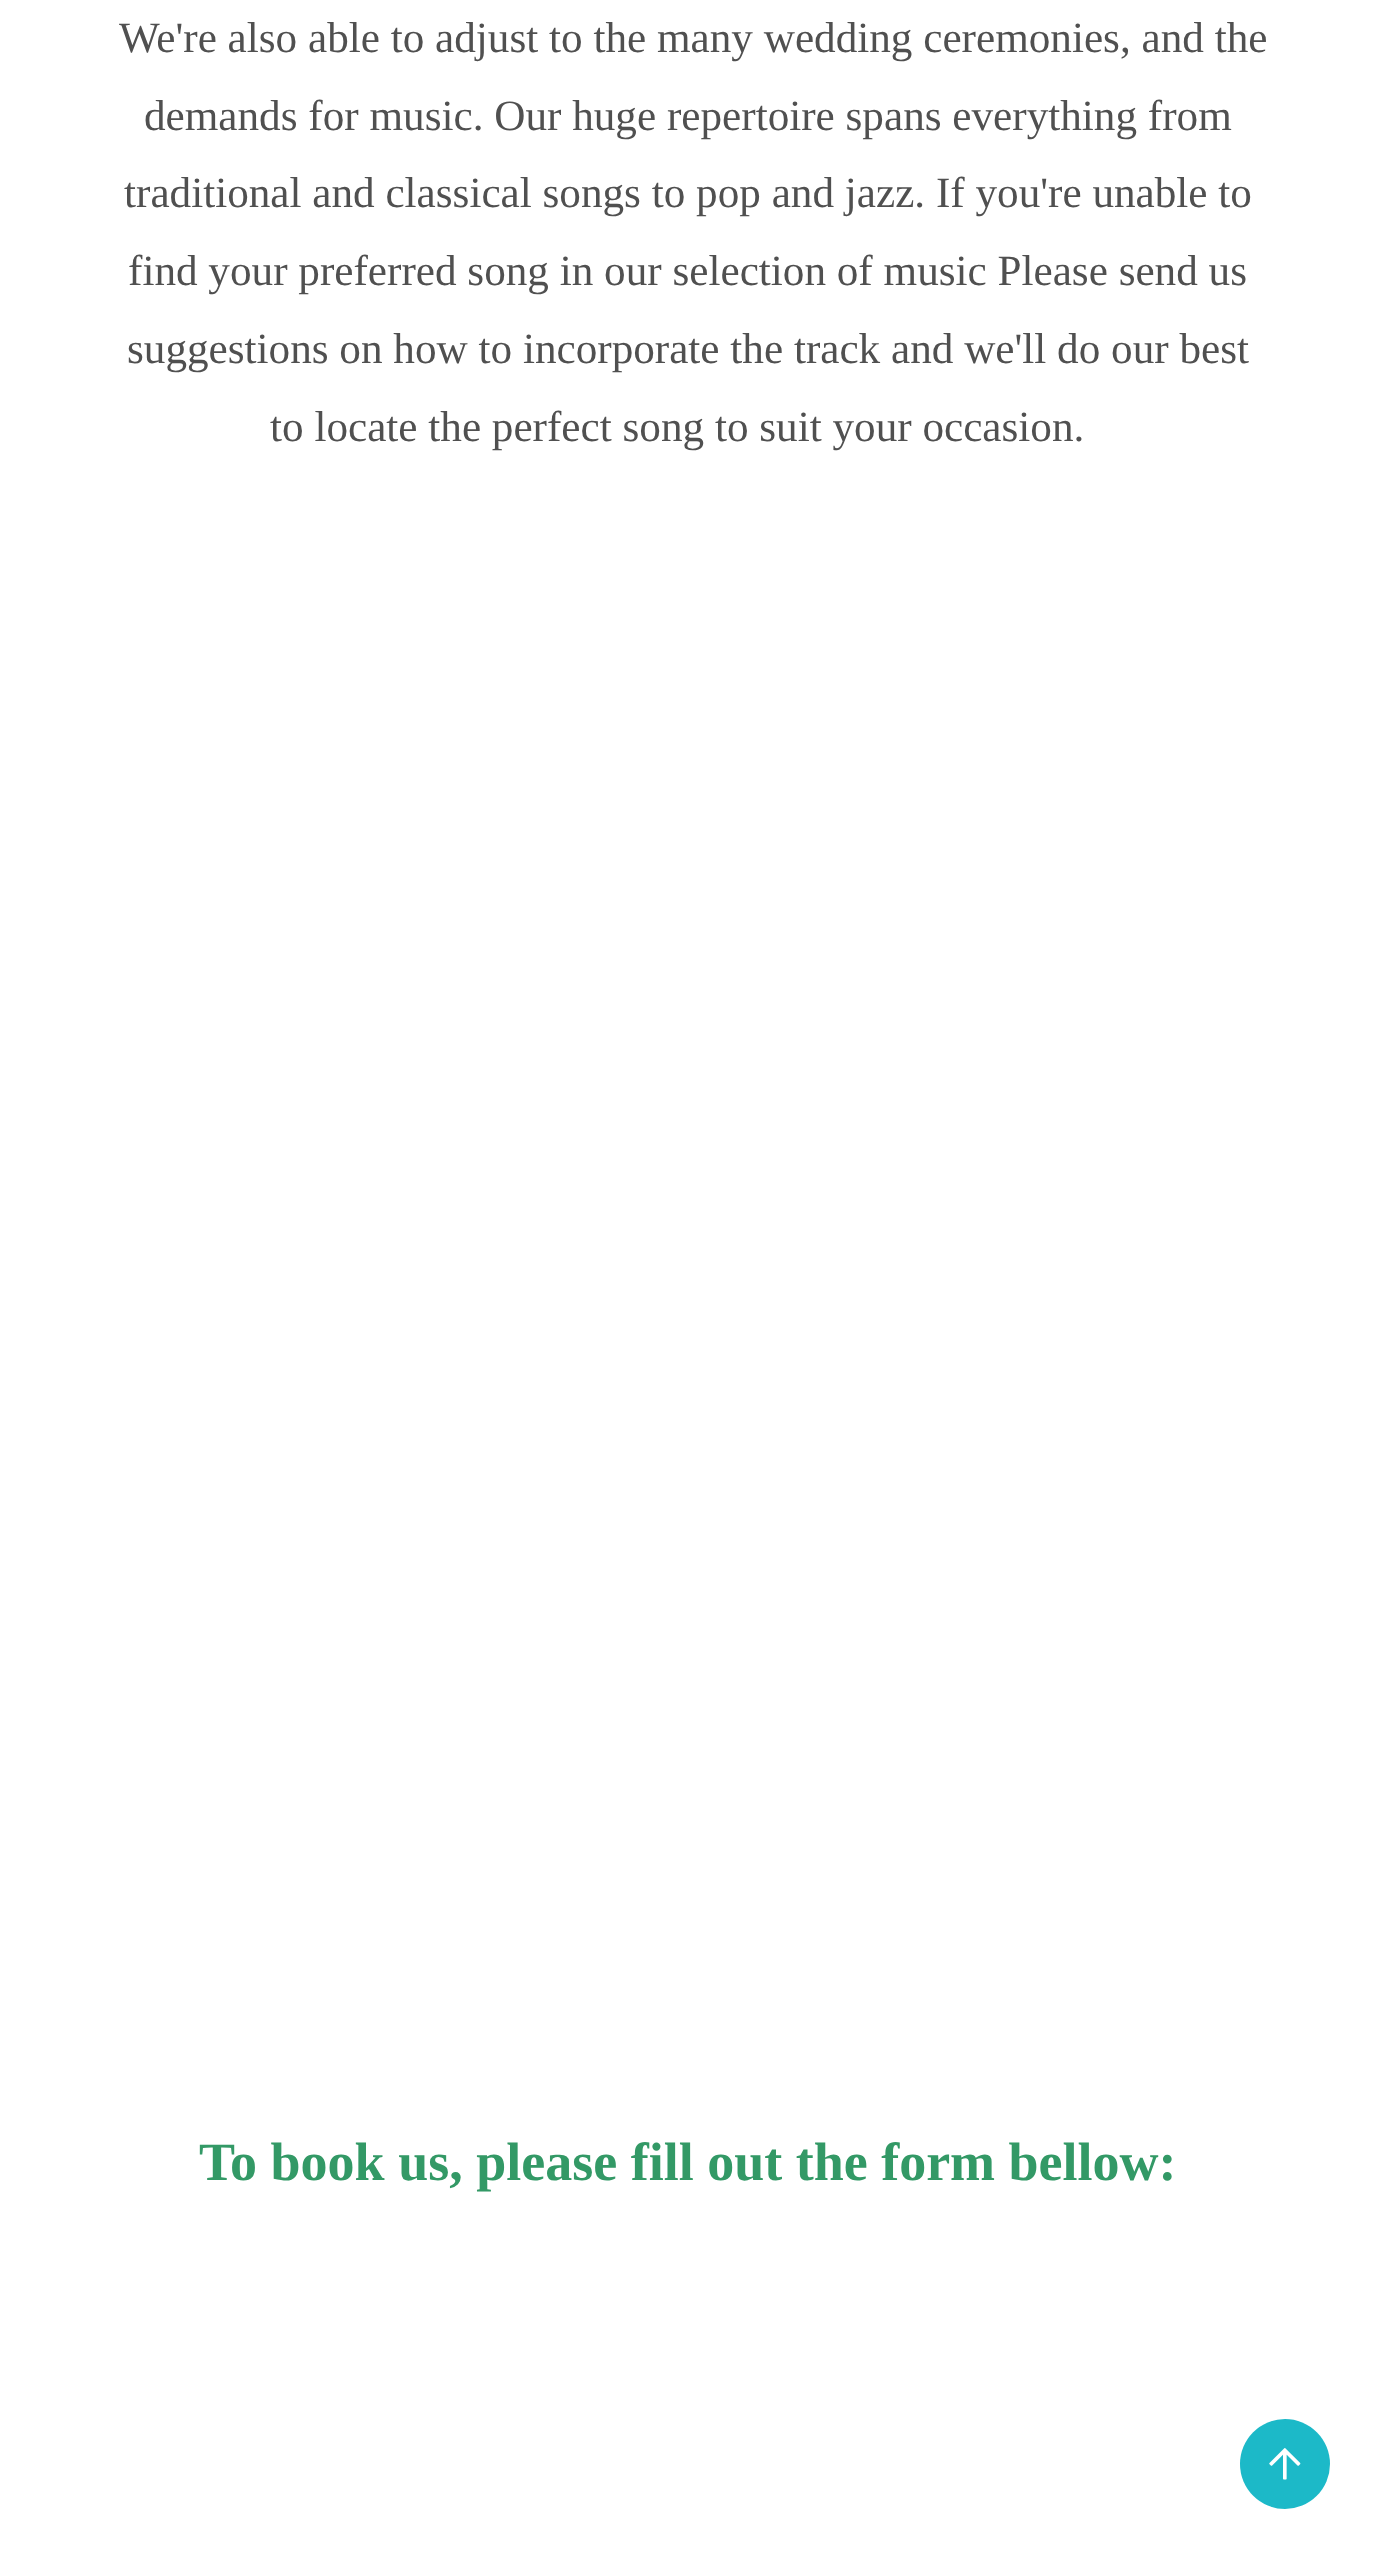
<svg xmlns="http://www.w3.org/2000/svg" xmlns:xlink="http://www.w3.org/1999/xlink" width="1373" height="2553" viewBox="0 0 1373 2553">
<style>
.cls-1{font:43.2px Liberation Serif;fill:#505050}
.cls-2{font:bold 54px Liberation Serif;fill:#339966}
</style>
<rect width="100%" height="100%" fill="#ffffff"/>
<circle fill="#1cb9c8" cx="1285" cy="2464" r="45"/>
<image xlink:href="image0.png" x="1269" y="2448" width="32" height="32"/>
<text class="cls-1" x="119" y="52">We're also able to adjust to the many wedding ceremonies, and the</text>
<text class="cls-1" x="144" y="130">demands for music. Our huge repertoire spans everything from</text>
<text class="cls-1" x="124" y="207">traditional and classical songs to pop and jazz. If you're unable to</text>
<text class="cls-1" x="128" y="285">find your preferred song in our selection of music Please send us</text>
<text class="cls-1" x="127" y="363">suggestions on how to incorporate the track and we'll do our best</text>
<text class="cls-1" x="270" y="441">to locate the perfect song to suit your occasion.</text>
<text class="cls-2" x="199" y="2180">To book us, please fill out the form bellow:</text>
</svg>
